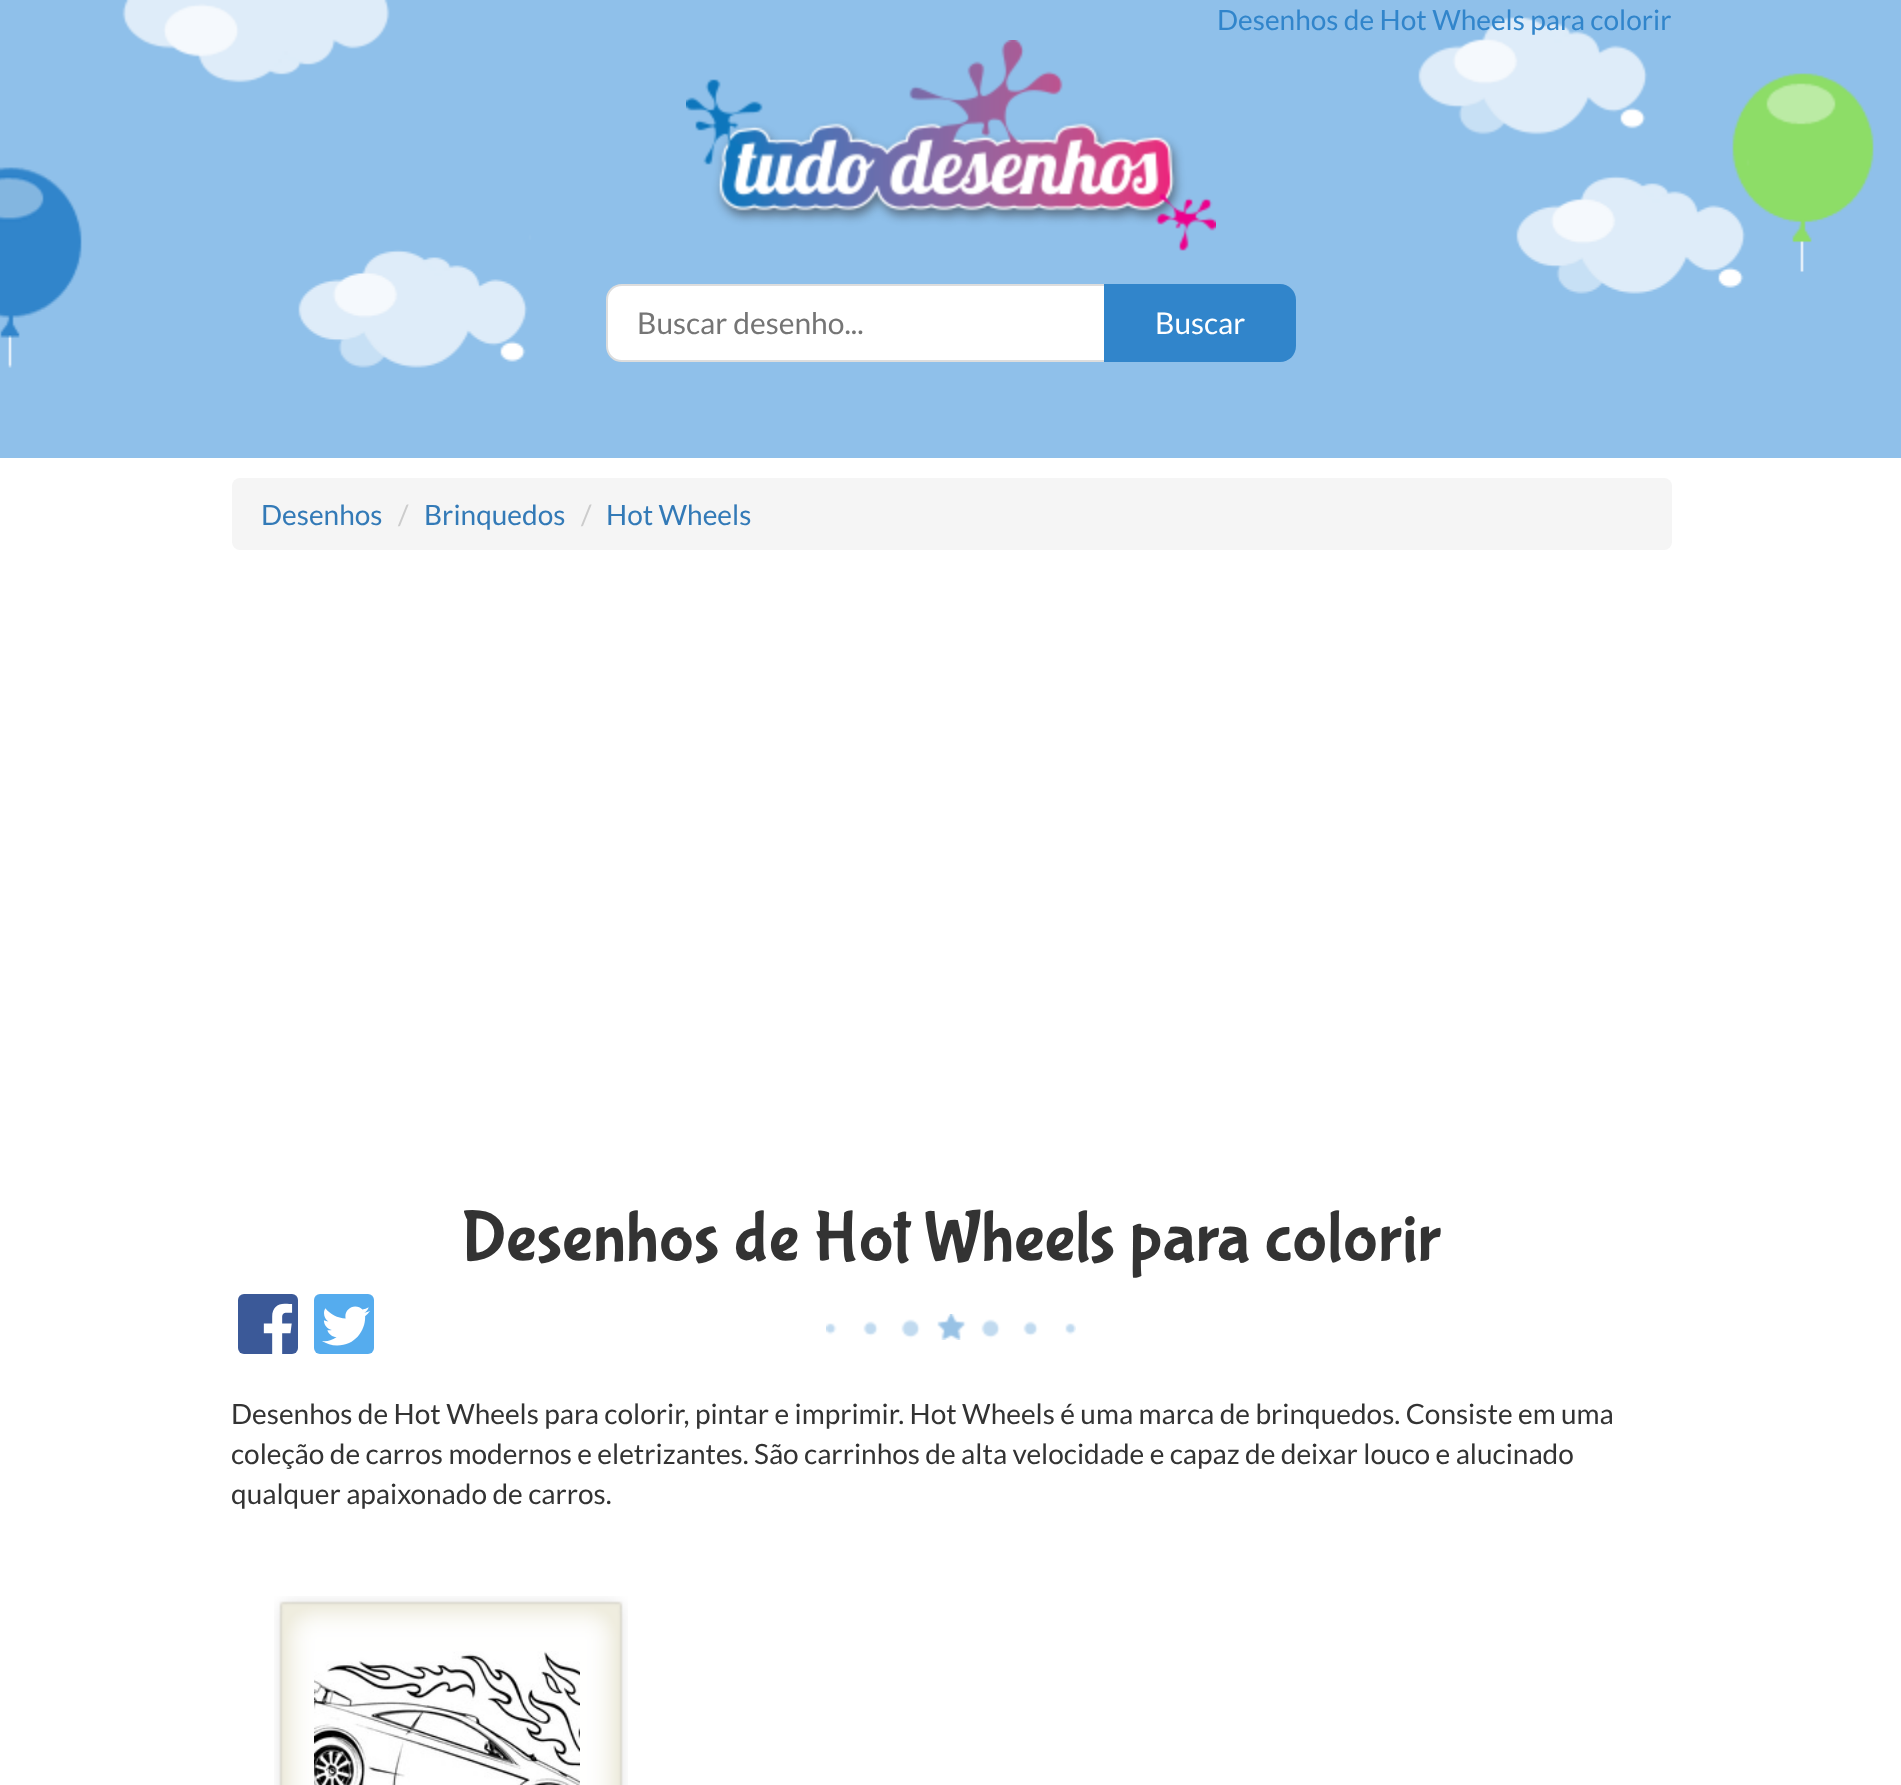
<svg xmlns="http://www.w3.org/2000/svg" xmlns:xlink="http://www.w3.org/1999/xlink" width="1901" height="1785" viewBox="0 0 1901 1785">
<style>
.cls-1{font:28px Lato;fill:#3185cb}
.cls-2{font:30px Lato;fill:#757575}
.cls-3{font:30px Lato;fill:#ffffff}
.cls-4{font:28px Lato;fill:#337ab7}
.cls-5{font:28px Lato;fill:#cccccc}
.cls-6{font:72px Bubblegum Sans;fill:#333333}
.cls-7{font:28px Lato;fill:#333333}
</style>
<rect width="100%" height="100%" fill="#ffffff"/>
<rect fill="#8fc0ea" x="0" y="0" width="1901" height="458"/>
<image xlink:href="image0.png" x="0" y="0" width="1874" height="368"/>
<image xlink:href="image1.png" x="686" y="40" width="530" height="211"/>
<path fill="#ffffff" stroke="#dddddd" stroke-width="2" d="M622 285H1105V361H622C613.5 361 607 354.5 607 346V300C607 291.5 613.5 285 622 285Z"/>
<path fill="#3185cb" d="M1104 284H1280C1289 284 1296 291 1296 300V346C1296 355 1289 362 1280 362H1104Z"/>
<rect fill="#f5f5f5" x="232" y="478" width="1440" height="72" rx="8"/>
<image xlink:href="image2.png" x="826" y="1314" width="250" height="26"/>
<image xlink:href="image3.png" x="238" y="1294" width="60" height="60"/>
<image xlink:href="image4.png" x="314" y="1294" width="60" height="60"/>
<image xlink:href="image5.png" x="274" y="1596" width="354" height="189"/>
<image xlink:href="image6.png" x="314" y="1651" width="266" height="134"/>
<text class="cls-1" x="1217" y="30">Desenhos de Hot Wheels para colorir</text>
<text class="cls-2" x="637" y="334">Buscar desenho...</text>
<text class="cls-3" x="1155" y="334">Buscar</text>
<text class="cls-4" x="261" y="525">Desenhos</text>
<text class="cls-5" x="398" y="525">/</text>
<text class="cls-4" x="424" y="525">Brinquedos</text>
<text class="cls-5" x="581" y="525">/</text>
<text class="cls-4" x="606" y="525">Hot Wheels</text>
<text class="cls-6" x="461" y="1259">Desenhos de Hot Wheels para colorir</text>
<text class="cls-7"><tspan x="231" y="1424">Desenhos de Hot Wheels para colorir, pintar e imprimir. Hot Wheels é uma marca de brinquedos. Consiste em uma</tspan><tspan x="231" y="1464">coleção de carros modernos e eletrizantes. São carrinhos de alta velocidade e capaz de deixar louco e alucinado</tspan><tspan x="231" y="1504">qualquer apaixonado de carros.</tspan></text>
</svg>
